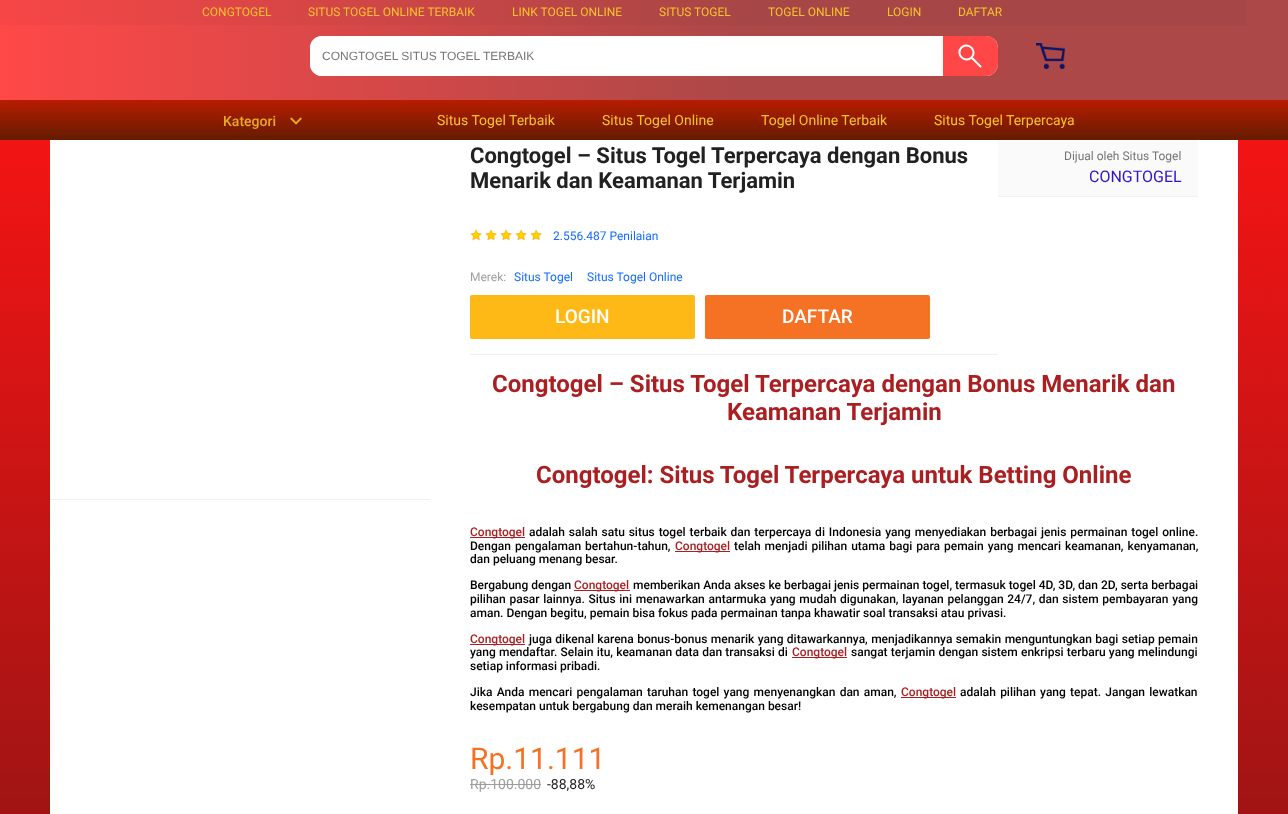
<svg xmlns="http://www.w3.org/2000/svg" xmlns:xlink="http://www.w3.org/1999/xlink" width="1288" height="814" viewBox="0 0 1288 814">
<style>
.cls-1{font:12px 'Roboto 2';fill:#f7c22e}
.cls-2{font:12px Liberation Sans;fill:#757575}
.cls-3{font:500 14px 'Roboto 2';fill:#e7a927}
.cls-4{font:14px 'Roboto 2';fill:#f7c22e}
.cls-5{font:bold 22px Roboto;fill:#212121}
.cls-6{font:12px Roboto;fill:#136cff}
.cls-7{font:12px Roboto;fill:#9e9e9e}
.cls-8{font:500 19px Roboto;fill:#ffffff}
.cls-9{font:12px Roboto;fill:#757575}
.cls-10{font:16px Roboto;fill:#3214ca}
.cls-11{font:bold 24px Roboto;fill:#aa2022}
.cls-12{font:500 12px Roboto;fill:#aa2022}
.cls-13{font:500 12px Roboto;fill:#000000}
.cls-14{font:30px Roboto;fill:#f57224}
.cls-15{font:14px Roboto;fill:#9e9e9e}
.cls-16{font:14px Roboto;fill:#212121}
</style>
<defs>
<linearGradient id="g1" gradientUnits="userSpaceOnUse" x1="644" y1="-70" x2="644" y2="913"><stop offset="0" stop-color="#ff4848"/><stop offset="1" stop-color="#ac4848"/></linearGradient>
<linearGradient id="g2" gradientUnits="userSpaceOnUse" x1="0" y1="50" x2="1288" y2="50"><stop offset="0" stop-color="#ff4848"/><stop offset="0.58" stop-color="#ac4848"/></linearGradient>
<linearGradient id="g3" gradientUnits="userSpaceOnUse" x1="0" y1="50" x2="1288" y2="50"><stop offset="0" stop-color="#f74646"/><stop offset="0.58" stop-color="#a74646"/></linearGradient>
<linearGradient id="g4" gradientUnits="userSpaceOnUse" x1="644" y1="100" x2="644" y2="140"><stop offset="0" stop-color="#b81c00"/><stop offset="1" stop-color="#641c00"/></linearGradient>
<linearGradient id="g5" gradientUnits="userSpaceOnUse" x1="644" y1="70" x2="644" y2="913"><stop offset="0" stop-color="#ff0000" stop-opacity="0.72"/><stop offset="1" stop-color="#8b0000" stop-opacity="0.72"/></linearGradient>
</defs>
<rect width="100%" height="100%" fill="#ffffff"/>
<rect fill="url(#g1)" x="0" y="140" width="1288" height="674"/>
<rect fill="url(#g2)" x="0" y="0" width="1288" height="100"/>
<rect fill="url(#g3)" x="0" y="0" width="1246" height="25"/>
<rect fill="#ffffff" x="310" y="36" width="688" height="40" rx="12"/>
<path fill="#ffffff" d="M322 36H943V76H322C315.5 76 310 70.5 310 64V48C310 41.5 315.5 36 322 36Z"/>
<path fill="#ff0000" fill-opacity="0.72" d="M943 36H986C992.5 36 998 41.5 998 48V64C998 70.5 992.5 76 986 76H943Z"/>
<path fill="none" stroke="#ffffff" stroke-width="2" stroke-linecap="round" stroke-linejoin="round" d="M971.5 57.5C978 51 968 41 961.5 47.5C955 54 965 64 971.5 57.5ZM972 58L980.5 66.5"/>
<image xlink:href="image0.png" x="1036" y="43" width="29" height="26"/>
<rect fill="url(#g4)" x="0" y="100" width="1288" height="40"/>
<image xlink:href="image1.png" x="290" y="117" width="12" height="8"/>
<rect fill="url(#g5)" x="0" y="140" width="1288" height="674"/>
<rect fill="#ffffff" x="50" y="140" width="1188" height="674"/>
<rect fill="#eff0f5" x="50" y="499" width="380" height="1"/>
<image xlink:href="image2.png" x="470" y="229" width="12" height="12"/>
<image xlink:href="image2.png" x="485" y="229" width="12" height="12"/>
<image xlink:href="image2.png" x="500" y="229" width="12" height="12"/>
<image xlink:href="image2.png" x="515" y="229" width="12" height="12"/>
<image xlink:href="image2.png" x="530" y="229" width="12" height="12"/>
<rect fill="#eff0f5" x="470" y="354" width="528" height="1"/>
<rect fill="#ffb916" x="470" y="295" width="225" height="44" rx="2"/>
<rect fill="#f57224" x="705" y="295" width="225" height="44" rx="2"/>
<rect fill="#fafafa" x="998" y="140" width="200" height="56"/>
<rect fill="#eff0f5" x="998" y="196" width="200" height="1"/>
<rect fill="#aa2022" x="470" y="537" width="55" height="1"/>
<rect fill="#aa2022" x="675" y="551" width="55" height="1"/>
<rect fill="#aa2022" x="574" y="590" width="56" height="1"/>
<rect fill="#aa2022" x="470" y="644" width="55" height="1"/>
<rect fill="#aa2022" x="792" y="657" width="55" height="1"/>
<rect fill="#aa2022" x="901" y="697" width="55" height="1"/>
<rect fill="#9e9e9e" x="470" y="784" width="71" height="1"/>
<text class="cls-1" x="202" y="16">CONGTOGEL</text>
<text class="cls-1" x="308" y="16">SITUS TOGEL ONLINE TERBAIK</text>
<text class="cls-1" x="512" y="16">LINK TOGEL ONLINE</text>
<text class="cls-1" x="659" y="16">SITUS TOGEL</text>
<text class="cls-1" x="768" y="16">TOGEL ONLINE</text>
<text class="cls-1" x="887" y="16">LOGIN</text>
<text class="cls-1" x="958" y="16">DAFTAR</text>
<text class="cls-2" x="322" y="60">CONGTOGEL SITUS TOGEL TERBAIK</text>
<text class="cls-3" x="223" y="126">Kategori</text>
<text class="cls-4" x="437" y="125">Situs Togel Terbaik</text>
<text class="cls-4" x="602" y="125">Situs Togel Online</text>
<text class="cls-4" x="761" y="125">Togel Online Terbaik</text>
<text class="cls-4" x="934" y="125">Situs Togel Terpercaya</text>
<text class="cls-5"><tspan x="470" y="163">Congtogel – Situs Togel Terpercaya dengan Bonus</tspan><tspan x="470" y="188">Menarik dan Keamanan Terjamin</tspan></text>
<text class="cls-6" x="553" y="240">2.556.487 Penilaian</text>
<text class="cls-7" x="470" y="281">Merek:</text>
<text class="cls-6" x="514" y="281">Situs Togel</text>
<text class="cls-6" x="587" y="281">Situs Togel Online</text>
<text class="cls-8" x="555" y="323">LOGIN</text>
<text class="cls-8" x="782" y="323">DAFTAR</text>
<text class="cls-9" x="1064" y="160">Dijual oleh Situs Togel</text>
<text class="cls-10" x="1089" y="182">CONGTOGEL</text>
<text class="cls-11" x="492" y="392">Congtogel – Situs Togel Terpercaya dengan Bonus Menarik dan</text>
<text class="cls-11" x="727" y="420">Keamanan Terjamin</text>
<text class="cls-11" x="536" y="483">Congtogel: Situs Togel Terpercaya untuk Betting Online</text>
<text class="cls-12" x="470" y="536">Congtogel</text>
<text class="cls-13" x="529" y="536" word-spacing="0.9">adalah salah satu situs togel terbaik dan terpercaya di Indonesia yang menyediakan berbagai jenis permainan togel online.</text>
<text class="cls-13" x="470" y="550" word-spacing="1">Dengan pengalaman bertahun-tahun,</text>
<text class="cls-12" x="675" y="550">Congtogel</text>
<text class="cls-13" x="734" y="550" word-spacing="1">telah menjadi pilihan utama bagi para pemain yang mencari keamanan, kenyamanan,</text>
<text class="cls-13" x="470" y="563">dan peluang menang besar.</text>
<text class="cls-13" x="470" y="589">Bergabung dengan</text>
<text class="cls-12" x="574" y="589">Congtogel</text>
<text class="cls-13" x="633" y="589">memberikan Anda akses ke berbagai jenis permainan togel, termasuk togel 4D, 3D, dan 2D, serta berbagai</text>
<text class="cls-13"><tspan x="470" y="603" word-spacing="0.7">pilihan pasar lainnya. Situs ini menawarkan antarmuka yang mudah digunakan, layanan pelanggan 24/7, dan sistem pembayaran yang</tspan><tspan x="470" y="617">aman. Dengan begitu, pemain bisa fokus pada permainan tanpa khawatir soal transaksi atau privasi.</tspan></text>
<text class="cls-12" x="470" y="643">Congtogel</text>
<text class="cls-13" x="529" y="643" word-spacing="0.4">juga dikenal karena bonus-bonus menarik yang ditawarkannya, menjadikannya semakin menguntungkan bagi setiap pemain</text>
<text class="cls-13" x="470" y="656" word-spacing="0.25">yang mendaftar. Selain itu, keamanan data dan transaksi di</text>
<text class="cls-12" x="792" y="656">Congtogel</text>
<text class="cls-13" x="851" y="656" word-spacing="0.25">sangat terjamin dengan sistem enkripsi terbaru yang melindungi</text>
<text class="cls-13" x="470" y="670">setiap informasi pribadi.</text>
<text class="cls-13" x="470" y="696" word-spacing="1.25">Jika Anda mencari pengalaman taruhan togel yang menyenangkan dan aman,</text>
<text class="cls-12" x="901" y="696">Congtogel</text>
<text class="cls-13" x="960" y="696" word-spacing="1.25">adalah pilihan yang tepat. Jangan lewatkan</text>
<text class="cls-13" x="470" y="710">kesempatan untuk bergabung dan meraih kemenangan besar!</text>
<text class="cls-14" x="470" y="769">Rp.11.111</text>
<text class="cls-15" x="470" y="789">Rp.100.000</text>
<text class="cls-16" x="547" y="789">-88,88%</text>
</svg>
